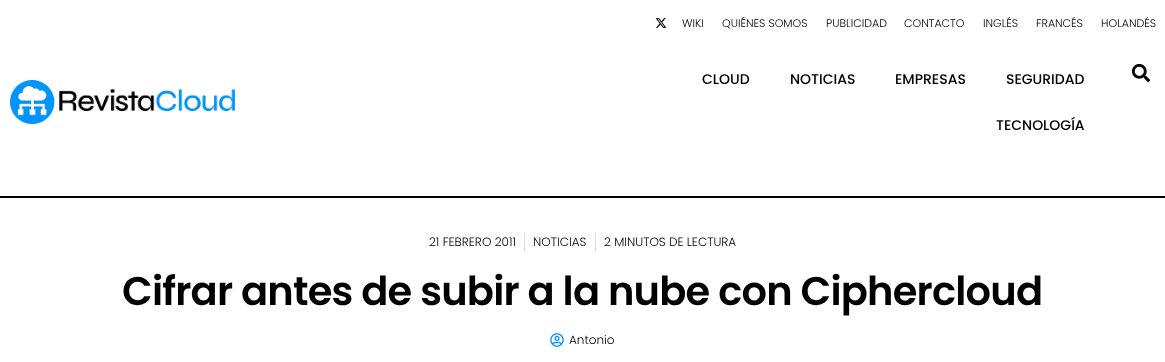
<svg xmlns="http://www.w3.org/2000/svg" xmlns:xlink="http://www.w3.org/1999/xlink" width="1165" height="362" viewBox="0 0 1165 362">
<style>
.cls-1{font:300 11px Poppins;fill:#000000}
.cls-2{font:500 14px Poppins;fill:#000000}
.cls-3{font:300 12px Poppins;fill:#000000}
.cls-4{font:600 40px Poppins;letter-spacing:-0.8px;fill:#000000}
</style>
<rect width="100%" height="100%" fill="#ffffff"/>
<image xlink:href="image0.png" x="655" y="18" width="12" height="10"/>
<image xlink:href="image1.png" x="10" y="80" width="225" height="44"/>
<image xlink:href="image2.png" x="1132" y="64" width="18" height="18"/>
<rect fill="#000000" x="0" y="196" width="1165" height="2"/>
<rect fill="#dddddd" x="524" y="233" width="1" height="18"/>
<rect fill="#dddddd" x="595" y="233" width="1" height="18"/>
<image xlink:href="image3.png" x="550" y="333" width="14" height="14"/>
<text class="cls-1" x="682" y="27">WIKI</text>
<text class="cls-1" x="722" y="27">QUIÉNES SOMOS</text>
<text class="cls-1" x="826" y="27">PUBLICIDAD</text>
<text class="cls-1" x="904" y="27">CONTACTO</text>
<text class="cls-1" x="983" y="27">INGLÉS</text>
<text class="cls-1" x="1036" y="27">FRANCÉS</text>
<text class="cls-1" x="1101" y="27">HOLANDÉS</text>
<text class="cls-2" x="702" y="84">CLOUD</text>
<text class="cls-2" x="790" y="84">NOTICIAS</text>
<text class="cls-2" x="895" y="84">EMPRESAS</text>
<text class="cls-2" x="1006" y="84">SEGURIDAD</text>
<text class="cls-2" x="996" y="130">TECNOLOGÍA</text>
<text class="cls-3" x="429" y="246">21 FEBRERO 2011</text>
<text class="cls-3" x="533" y="246">NOTICIAS</text>
<text class="cls-3" x="604" y="246">2 MINUTOS DE LECTURA</text>
<text class="cls-4" x="122" y="305">Cifrar antes de subir a la nube con Ciphercloud</text>
<text class="cls-3" x="569" y="344">Antonio</text>
</svg>
